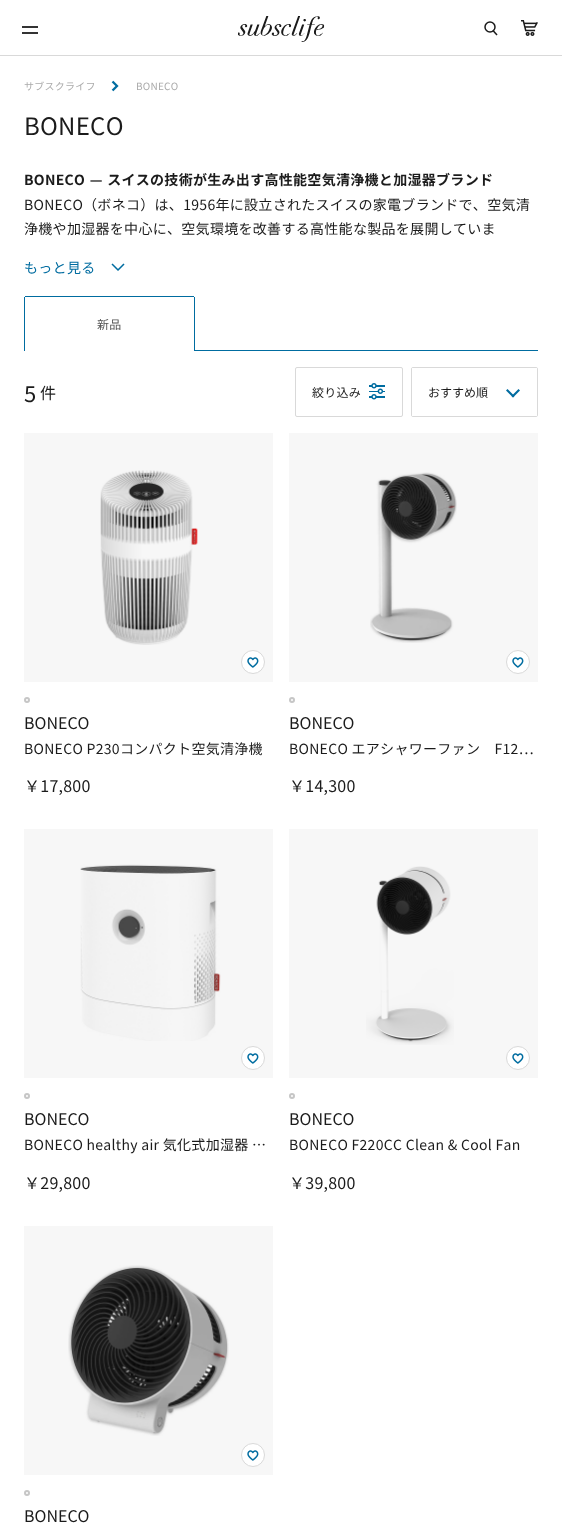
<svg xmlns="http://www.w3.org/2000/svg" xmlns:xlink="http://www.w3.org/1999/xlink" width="562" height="1532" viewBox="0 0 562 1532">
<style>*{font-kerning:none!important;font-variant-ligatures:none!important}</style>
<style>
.cls-1{font:10px Noto Sans JP;letter-spacing:0.25px;fill:#ababab}
.cls-2{font:24px Noto Sans JP;letter-spacing:0.25px;fill:#1b1b1b}
.cls-3{font:bold 14px Noto Sans JP;letter-spacing:0.3px;fill:#1b1b1b}
.cls-4{font:14px Noto Sans JP;letter-spacing:0.3px;fill:#1b1b1b}
.cls-5{font:14px Noto Sans JP;letter-spacing:0.3px;fill:#006ca0}
.cls-6{font:12px Noto Sans JP;letter-spacing:0.25px;fill:#535353}
.cls-7{font:22px Noto Sans JP;fill:#1b1b1b}
.cls-8{font:16px Noto Sans JP;fill:#1b1b1b}
.cls-9{font:12px Noto Sans JP;letter-spacing:0.25px;fill:#1b1b1b}
.cls-10{font:12px Noto Sans JP;fill:#1b1b1b}
.cls-11{font:16px Noto Sans JP;letter-spacing:0.25px;fill:#1b1b1b}
</style>
<rect width="100%" height="100%" fill="#ffffff"/>
<rect fill="#d9d9d9" x="0" y="55" width="562" height="1"/>
<rect fill="#333333" x="22" y="26" width="16" height="2"/>
<rect fill="#333333" x="22" y="32" width="16" height="2"/>
<image xlink:href="image0.png" x="238" y="16" width="87" height="26"/>
<circle fill="none" stroke="#1b1b1b" stroke-width="1.5" cx="490" cy="27" r="5"/>
<path fill="none" stroke="#1b1b1b" stroke-width="1.5" d="M493 30.5L497 35"/>
<image xlink:href="image1.png" x="521" y="20" width="17" height="16"/>
<image xlink:href="image2.png" x="111" y="80" width="8" height="12"/>
<image xlink:href="image3.png" x="111" y="263" width="14" height="8"/>
<rect fill="#006ca0" x="25" y="296" width="169" height="1"/>
<rect fill="#006ca0" x="194" y="297" width="1" height="54"/>
<rect fill="#006ca0" x="24" y="297" width="1" height="54"/>
<rect fill="#006ca0" x="195" y="350" width="343" height="1"/>
<rect fill="none" stroke="#d9d9d9" x="295.5" y="367.5" width="107" height="49" rx="1.5"/>
<image xlink:href="image4.png" x="369" y="383" width="16" height="17"/>
<rect fill="none" stroke="#d9d9d9" x="411.5" y="367.5" width="126" height="49" rx="1.5"/>
<rect fill="#ffffff" x="412" y="368" width="125" height="48"/>
<path fill="#006ca0" d="M518.5 389L520 390.5L513 397.5L511.5 396Z"/>
<path fill="#006ca0" d="M507.5 389L514.5 396L513 397.5L506 390.5Z"/>
<image xlink:href="image5.png" x="100" y="470" width="98" height="175"/>
<rect fill="#000000" fill-opacity="0.03" x="24" y="433" width="249" height="249"/>
<circle fill="#ffffff" stroke="#d9d9d9" cx="253" cy="662" r="11.5"/>
<image xlink:href="image6.png" x="247" y="657" width="12" height="11"/>
<circle fill="none" stroke="#c6c6c6" stroke-width="2" cx="27" cy="700" r="2"/>
<image xlink:href="image7.png" x="370" y="472" width="87" height="171"/>
<rect fill="#000000" fill-opacity="0.03" x="289" y="433" width="249" height="249"/>
<circle fill="#ffffff" stroke="#d9d9d9" cx="518" cy="662" r="11.5"/>
<image xlink:href="image6.png" x="512" y="657" width="12" height="11"/>
<circle fill="none" stroke="#c6c6c6" stroke-width="2" cx="292" cy="700" r="2"/>
<image xlink:href="image8.png" x="80" y="864" width="141" height="177"/>
<rect fill="#000000" fill-opacity="0.03" x="24" y="829" width="249" height="249"/>
<circle fill="#ffffff" stroke="#d9d9d9" cx="253" cy="1058" r="11.5"/>
<image xlink:href="image6.png" x="247" y="1053" width="12" height="11"/>
<circle fill="none" stroke="#c6c6c6" stroke-width="2" cx="27" cy="1096" r="2"/>
<image xlink:href="image9.png" x="366" y="866" width="88" height="179"/>
<rect fill="#000000" fill-opacity="0.03" x="289" y="829" width="249" height="249"/>
<circle fill="#ffffff" stroke="#d9d9d9" cx="518" cy="1058" r="11.5"/>
<image xlink:href="image6.png" x="512" y="1053" width="12" height="11"/>
<circle fill="none" stroke="#c6c6c6" stroke-width="2" cx="292" cy="1096" r="2"/>
<image xlink:href="image10.png" x="68" y="1265" width="161" height="171"/>
<rect fill="#000000" fill-opacity="0.03" x="24" y="1226" width="249" height="249"/>
<circle fill="#ffffff" stroke="#d9d9d9" cx="253" cy="1455" r="11.5"/>
<image xlink:href="image6.png" x="247" y="1450" width="12" height="11"/>
<circle fill="none" stroke="#c6c6c6" stroke-width="2" cx="27" cy="1493" r="2"/>
<text class="cls-1" x="24" y="90">サブスクライフ</text>
<text class="cls-1" x="136" y="90">BONECO</text>
<text class="cls-2" x="24" y="135">BONECO</text>
<text class="cls-3" x="24" y="185" word-spacing="1">BONECO — スイスの技術が生み出す高性能空気清浄機と加湿器ブランド</text>
<text class="cls-4"><tspan x="24" y="210">BONECO（ボネコ）は、1956年に設立されたスイスの家電ブランドで、空気清</tspan><tspan x="24" y="234">浄機や加湿器を中心に、空気環境を改善する高性能な製品を展開していま</tspan></text>
<text class="cls-5" x="24" y="273">もっと見る</text>
<text class="cls-6" x="97" y="329">新品</text>
<text class="cls-7" x="24" y="402">5</text>
<text class="cls-8" x="40" y="399">件</text>
<text class="cls-9" x="312" y="397">絞り込み</text>
<text class="cls-10" x="428" y="397">おすすめ順</text>
<text class="cls-8" x="24" y="729">BONECO</text>
<text class="cls-4" x="24" y="754">BONECO P230コンパクト空気清浄機</text>
<text class="cls-11" x="24" y="792">￥17,800</text>
<text class="cls-8" x="289" y="729">BONECO</text>
<text class="cls-4" x="289" y="754">BONECO エアシャワーファン　F12…</text>
<text class="cls-11" x="289" y="792">￥14,300</text>
<text class="cls-8" x="24" y="1125">BONECO</text>
<text class="cls-4" x="24" y="1150">BONECO healthy air 気化式加湿器 …</text>
<text class="cls-11" x="24" y="1189">￥29,800</text>
<text class="cls-8" x="289" y="1125">BONECO</text>
<text class="cls-4" x="289" y="1150">BONECO F220CC Clean &amp; Cool Fan</text>
<text class="cls-11" x="289" y="1189">￥39,800</text>
<text class="cls-8" x="24" y="1522">BONECO</text>
</svg>
